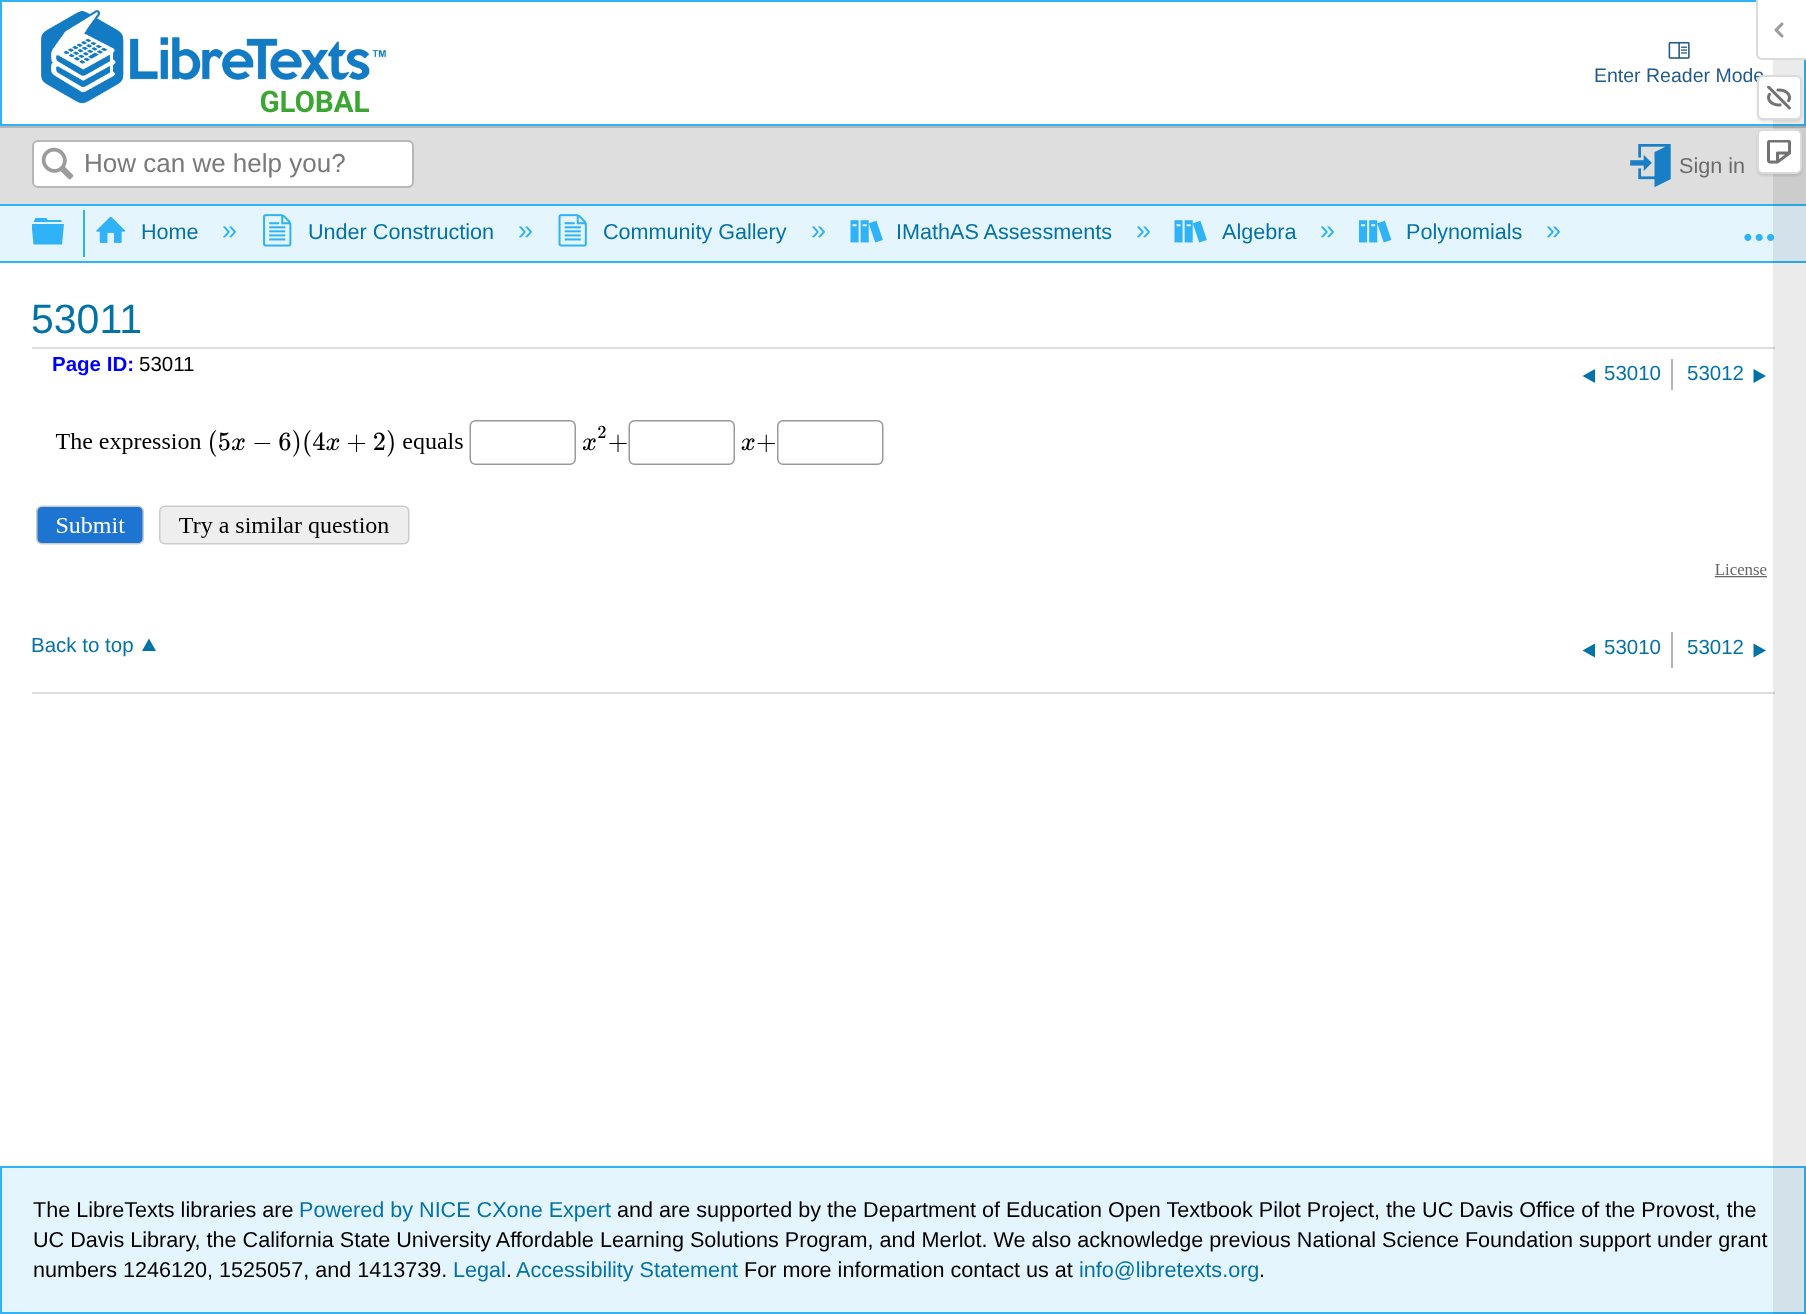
<svg xmlns="http://www.w3.org/2000/svg" xmlns:xlink="http://www.w3.org/1999/xlink" width="1806" height="1314" viewBox="0 0 1806 1314">
<style>
.cls-1{font:19.5px Liberation Sans;fill:#235a8b}
.cls-2{font:26px Liberation Sans;fill:#797979}
.cls-3{font:21.6px Liberation Sans;fill:#6b6b6b}
.cls-4{font:21.6px Liberation Sans;fill:#0372a6}
.cls-5{font:27px Liberation Sans;fill:#30b3f6}
.cls-6{font:41px Liberation Sans;fill:#0372a6}
.cls-7{font:bold 20.5px Liberation Sans;fill:#0000ff}
.cls-8{font:20.5px Liberation Sans;fill:#000000}
.cls-9{font:20.5px Liberation Sans;fill:#0372a6}
.cls-10{font:21.6px Liberation Sans;fill:#000000}
</style>
<rect width="100%" height="100%" fill="#ffffff"/>
<rect fill="none" stroke="#30b3f6" stroke-width="2" x="1" y="1" width="1804" height="124"/>
<image xlink:href="image0.png" x="41" y="10" width="345" height="103"/>
<image xlink:href="image1.png" x="1668" y="41" width="22" height="18"/>
<rect fill="#dedede" x="0" y="128" width="1806" height="76"/>
<rect fill="#b6b6b6" x="0" y="126" width="1806" height="2"/>
<rect fill="#ffffff" stroke="#b6b6b6" stroke-width="2" x="33" y="141" width="380" height="46" rx="5"/>
<image xlink:href="image2.png" x="41" y="147" width="33" height="33"/>
<image xlink:href="image3.png" x="1630" y="144" width="41" height="44"/>
<rect fill="#e5f5fe" x="0" y="206" width="1806" height="55"/>
<rect fill="#30b3f6" x="0" y="204" width="1806" height="2"/>
<rect fill="#30b3f6" x="0" y="261" width="1806" height="2"/>
<path fill="#30b3f6" fill-rule="evenodd" d="M32 229V224H64L62 244.5H33.5ZM61 220H47.5L46.5 218H35.5L33.5 222H62Z"/>
<rect fill="#30b3f6" x="83" y="210" width="2" height="47"/>
<image xlink:href="image4.png" x="96" y="216" width="30" height="27"/>
<image xlink:href="image5.png" x="263" y="214" width="29" height="33"/>
<image xlink:href="image6.png" x="558" y="214" width="29" height="33"/>
<image xlink:href="image7.png" x="850" y="220" width="33" height="23"/>
<image xlink:href="image7.png" x="1174" y="220" width="33" height="23"/>
<image xlink:href="image8.png" x="1359" y="220" width="33" height="23"/>
<image xlink:href="image9.png" x="1744" y="233" width="31" height="8"/>
<rect fill="#dddddd" x="32" y="347" width="1743" height="2"/>
<rect fill="#b4b4b4" x="1671" y="359" width="2" height="31"/>
<path fill="#0372a6" d="M1595 369V383L1582.5 376Z"/>
<path fill="#0372a6" d="M1753.5 369V383L1766 376Z"/>
<image xlink:href="image10.png" x="36" y="420" width="1731" height="158"/>
<rect fill="#dddddd" x="32" y="692" width="1743" height="2"/>
<path fill="#0372a6" d="M142 651H156L149 638.5Z"/>
<rect fill="#b4b4b4" x="1671" y="632" width="2" height="36"/>
<path fill="#0372a6" d="M1595 643.5V657.5L1582.5 650.5Z"/>
<path fill="#0372a6" d="M1753.5 643.5V657.5L1766 650.5Z"/>
<rect fill="#e5f5fe" stroke="#30b3f6" stroke-width="2" x="1" y="1167" width="1804" height="146"/>
<rect fill="#000000" fill-opacity="0.08" x="1773" y="60" width="33" height="1254"/>
<path fill="#ffffff" d="M1758 0H1806V59H1763C1760 59 1758 57 1758 54Z"/>
<path fill="#dbdbdb" fill-rule="evenodd" d="M1756 0H1806V60H1762C1759 60 1756 57 1756 54ZM1758 0H1806V58H1762C1760 58 1758 56 1758 54Z"/>
<image xlink:href="image11.png" x="1774" y="22" width="10" height="16"/>
<rect fill="#000000" fill-opacity="0.1" filter="blur(1px)" x="1757" y="77" width="45" height="45" rx="6"/>
<rect fill="#000000" fill-opacity="0.1" filter="blur(1px)" x="1757" y="131" width="45" height="45" rx="6"/>
<rect fill="#ffffff" stroke="#dbdbdb" stroke-width="2" x="1758" y="130" width="43" height="43" rx="5"/>
<image xlink:href="image13.png" x="1767" y="140" width="24" height="24"/>
<text class="cls-1" x="1594" y="82">Enter Reader Mode</text>
<text class="cls-2" x="84" y="172">How can we help you?</text>
<text class="cls-3" x="1679" y="173">Sign in</text>
<text class="cls-4" x="141" y="239">Home</text>
<text class="cls-5" x="222" y="239">»</text>
<text class="cls-4" x="308" y="239">Under Construction</text>
<text class="cls-5" x="518" y="239">»</text>
<text class="cls-4" x="603" y="239">Community Gallery</text>
<text class="cls-5" x="811" y="239">»</text>
<text class="cls-4" x="896" y="239">IMathAS Assessments</text>
<text class="cls-5" x="1136" y="239">»</text>
<text class="cls-4" x="1222" y="239">Algebra</text>
<text class="cls-5" x="1320" y="239">»</text>
<text class="cls-4" x="1406" y="239">Polynomials</text>
<text class="cls-5" x="1546" y="239">»</text>
<text class="cls-6" x="31" y="333">53011</text>
<text class="cls-7" x="52" y="371">Page ID:</text>
<text class="cls-8" x="139" y="371">53011</text>
<text class="cls-9" x="1604" y="380">53010</text>
<text class="cls-9" x="1687" y="380">53012</text>
<text class="cls-9" x="31" y="652">Back to top</text>
<text class="cls-9" x="1604" y="654">53010</text>
<text class="cls-9" x="1687" y="654">53012</text>
<text class="cls-10" x="33" y="1217">The LibreTexts libraries are</text>
<text class="cls-4" x="299" y="1217">Powered by NICE CXone Expert</text>
<text class="cls-10" x="617" y="1217">and are supported by the Department of Education Open Textbook Pilot Project, the UC Davis Office of the Provost, the</text>
<text class="cls-10"><tspan x="33" y="1247">UC Davis Library, the California State University Affordable Learning Solutions Program, and Merlot. We also acknowledge previous National Science Foundation support under grant</tspan><tspan x="33" y="1277">numbers 1246120, 1525057, and 1413739.</tspan></text>
<text class="cls-4" x="453" y="1277">Legal</text>
<text class="cls-10" x="506" y="1277">.</text>
<text class="cls-4" x="516" y="1277">Accessibility Statement</text>
<text class="cls-10" x="744" y="1277">For more information contact us at</text>
<text class="cls-4" x="1079" y="1277">info@libretexts.org</text>
<text class="cls-10" x="1259" y="1277">.</text>
<rect fill="#ffffff" stroke="#dbdbdb" stroke-width="2" x="1758" y="76" width="43" height="43" rx="5"/>
<image xlink:href="image12.png" x="1767" y="86" width="24" height="24"/>
</svg>
